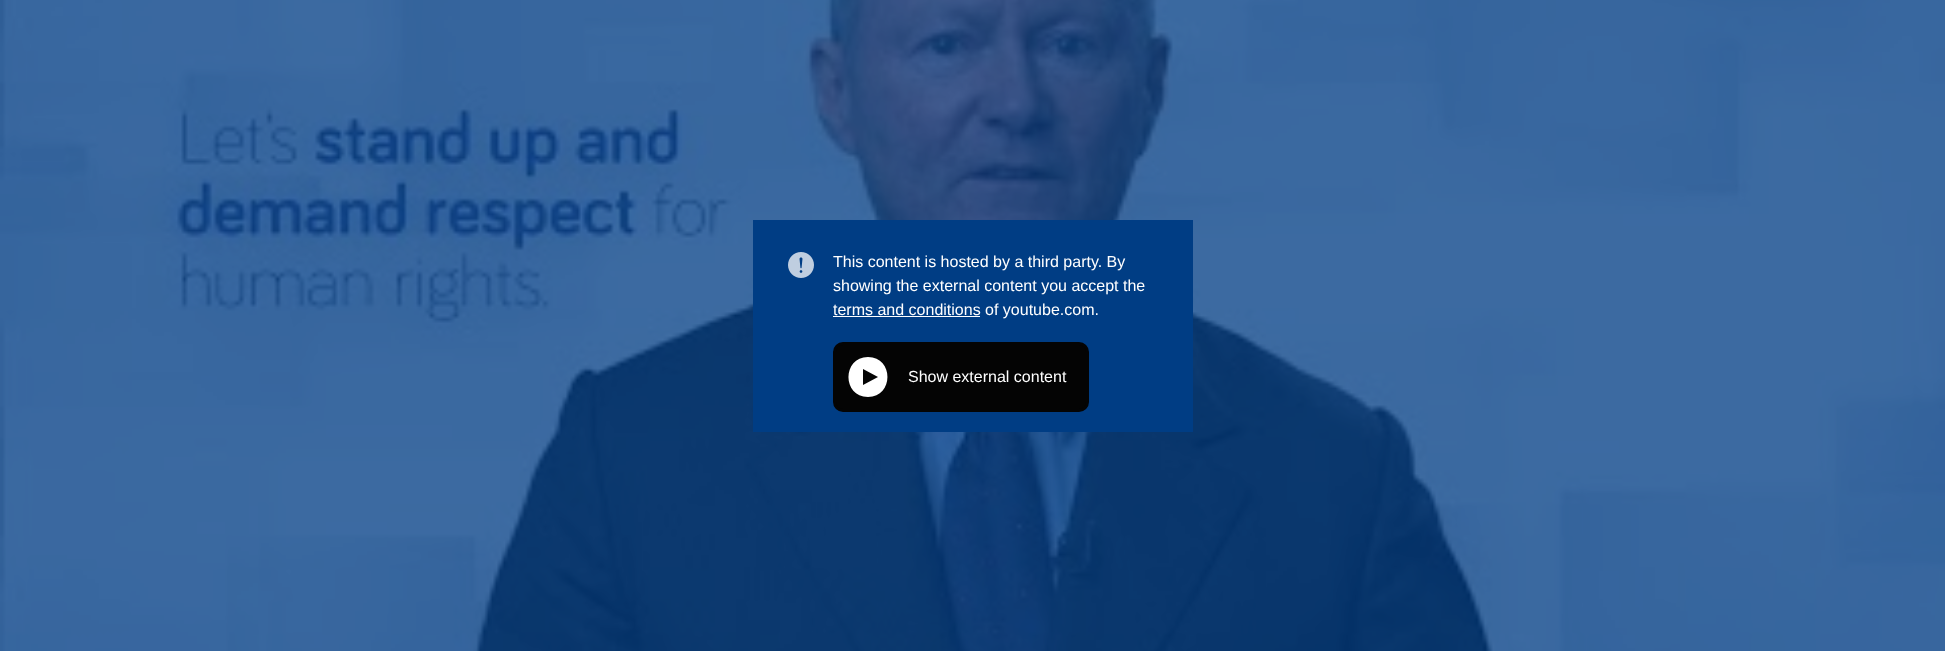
<svg xmlns="http://www.w3.org/2000/svg" xmlns:xlink="http://www.w3.org/1999/xlink" width="1945" height="651" viewBox="0 0 1945 651">
<style>
.cls-1{font:16px Liberation Sans;fill:#ffffff}
</style>
<rect width="100%" height="100%" fill="#ffffff"/>
<image xlink:href="image0.png" x="0" y="0" width="1945" height="651"/>
<rect fill="#003d84" x="753" y="220" width="440" height="212"/>
<image xlink:href="image1.png" x="788" y="252" width="26" height="26"/>
<rect fill="#ffffff" x="833" y="316" width="147" height="1"/>
<rect fill="#040404" stroke="#040404" stroke-width="3" x="834.5" y="343.5" width="253" height="67" rx="8.5"/>
<path fill="#ffffff" d="M868 357C842 357 842 397 868 397C894 397 894 357 868 357ZM863 385V369L878 377Z"/>
<text class="cls-1"><tspan x="833" y="267">This content is hosted by a third party. By</tspan><tspan x="833" y="291">showing the external content you accept the</tspan><tspan x="833" y="315">terms and conditions of youtube.com.</tspan></text>
<text class="cls-1" x="908" y="382">Show external content</text>
</svg>
